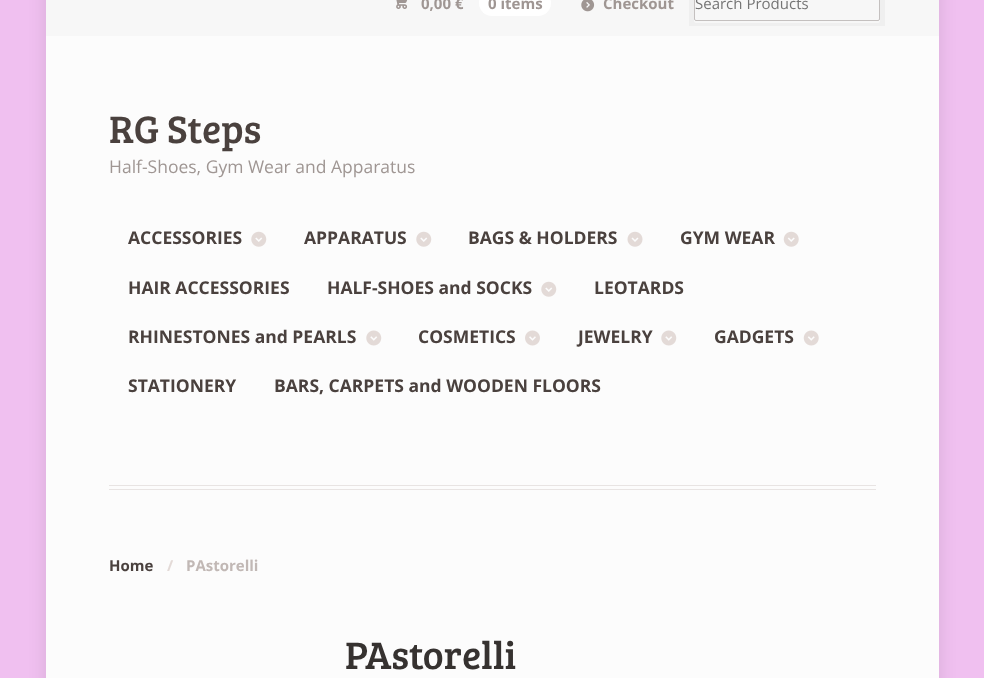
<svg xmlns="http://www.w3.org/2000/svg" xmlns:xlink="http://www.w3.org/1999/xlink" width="984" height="678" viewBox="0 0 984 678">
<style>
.cls-1{font:15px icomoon;fill:#9f9693}
.cls-2{font:bold 15px Open Sans;fill:#9f9693}
.cls-3{font:15px Open Sans;fill:#757575}
.cls-4{font:39.5px Bree Serif;fill:#4a413e}
.cls-5{font:17.5px Open Sans;fill:#9f9693}
.cls-6{font:bold 17.5px Open Sans;fill:#4a413e}
.cls-7{font:bold 15px Open Sans;fill:#4a413e}
.cls-8{font:bold 15px Open Sans;fill:#e3dad7}
.cls-9{font:bold 15px Open Sans;fill:#c1b8b5}
.cls-10{font:39.5px Bree Serif;fill:#363230}
</style>
<rect width="100%" height="100%" fill="#f0c0f0"/>
<rect fill="#000000" fill-opacity="0.1" filter="blur(9px)" x="46" y="-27" width="893" height="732"/>
<rect fill="#fcfcfc" x="46" y="36" width="893" height="642"/>
<rect fill="#f7f7f7" x="46" y="0" width="893" height="36"/>
<rect fill="#ffffff" x="479" y="-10" width="72" height="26" rx="13"/>
<image xlink:href="image0.png" x="581" y="0" width="14" height="12"/>
<path fill="#ffffff" d="M694 20V21C694 22 695 23 696 23H878C879 23 880 22 880 21V19C880 20 879 21 878 21H696Z"/>
<rect fill="none" stroke="#000000" stroke-opacity="0.03" stroke-width="5" x="691.5" y="-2.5" width="191" height="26"/>
<rect fill="none" stroke="#c4c0bf" x="694.5" y="-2.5" width="185" height="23" rx="1.5"/>
<rect fill="#e8e4e3" x="109" y="485" width="767" height="1"/>
<rect fill="#e8e4e3" x="109" y="489" width="767" height="1"/>
<image xlink:href="image1.png" x="251" y="231" width="16" height="16"/>
<image xlink:href="image1.png" x="416" y="231" width="16" height="16"/>
<image xlink:href="image2.png" x="627" y="231" width="16" height="16"/>
<image xlink:href="image3.png" x="783" y="231" width="16" height="16"/>
<image xlink:href="image1.png" x="541" y="281" width="16" height="16"/>
<image xlink:href="image4.png" x="366" y="330" width="16" height="16"/>
<image xlink:href="image5.png" x="525" y="330" width="15" height="16"/>
<image xlink:href="image4.png" x="661" y="330" width="16" height="16"/>
<image xlink:href="image6.png" x="803" y="330" width="16" height="16"/>
<text class="cls-1" x="393" y="9">£</text>
<text class="cls-2" x="421" y="9">0,00 €</text>
<text class="cls-2" x="488" y="9">0 items</text>
<text class="cls-2" x="603" y="9">Checkout</text>
<text class="cls-3" x="695" y="9">Search Products</text>
<text class="cls-4" x="109" y="143">RG Steps</text>
<text class="cls-5" x="109" y="173">Half-Shoes, Gym Wear and Apparatus</text>
<text class="cls-6" x="128" y="244">ACCESSORIES</text>
<text class="cls-6" x="304" y="244">APPARATUS</text>
<text class="cls-6" x="468" y="244">BAGS &amp; HOLDERS</text>
<text class="cls-6" x="680" y="244">GYM WEAR</text>
<text class="cls-6" x="128" y="294">HAIR ACCESSORIES</text>
<text class="cls-6" x="327" y="294">HALF-SHOES and SOCKS</text>
<text class="cls-6" x="594" y="294">LEOTARDS</text>
<text class="cls-6" x="128" y="343">RHINESTONES and PEARLS</text>
<text class="cls-6" x="418" y="343">COSMETICS</text>
<text class="cls-6" x="578" y="343">JEWELRY</text>
<text class="cls-6" x="714" y="343">GADGETS</text>
<text class="cls-6" x="128" y="392">STATIONERY</text>
<text class="cls-6" x="274" y="392">BARS, CARPETS and WOODEN FLOORS</text>
<text class="cls-7" x="109" y="571">Home</text>
<text class="cls-8" x="167" y="571">/</text>
<text class="cls-9" x="186" y="571">PAstorelli</text>
<text class="cls-10" x="345" y="669">PAstorelli</text>
</svg>
